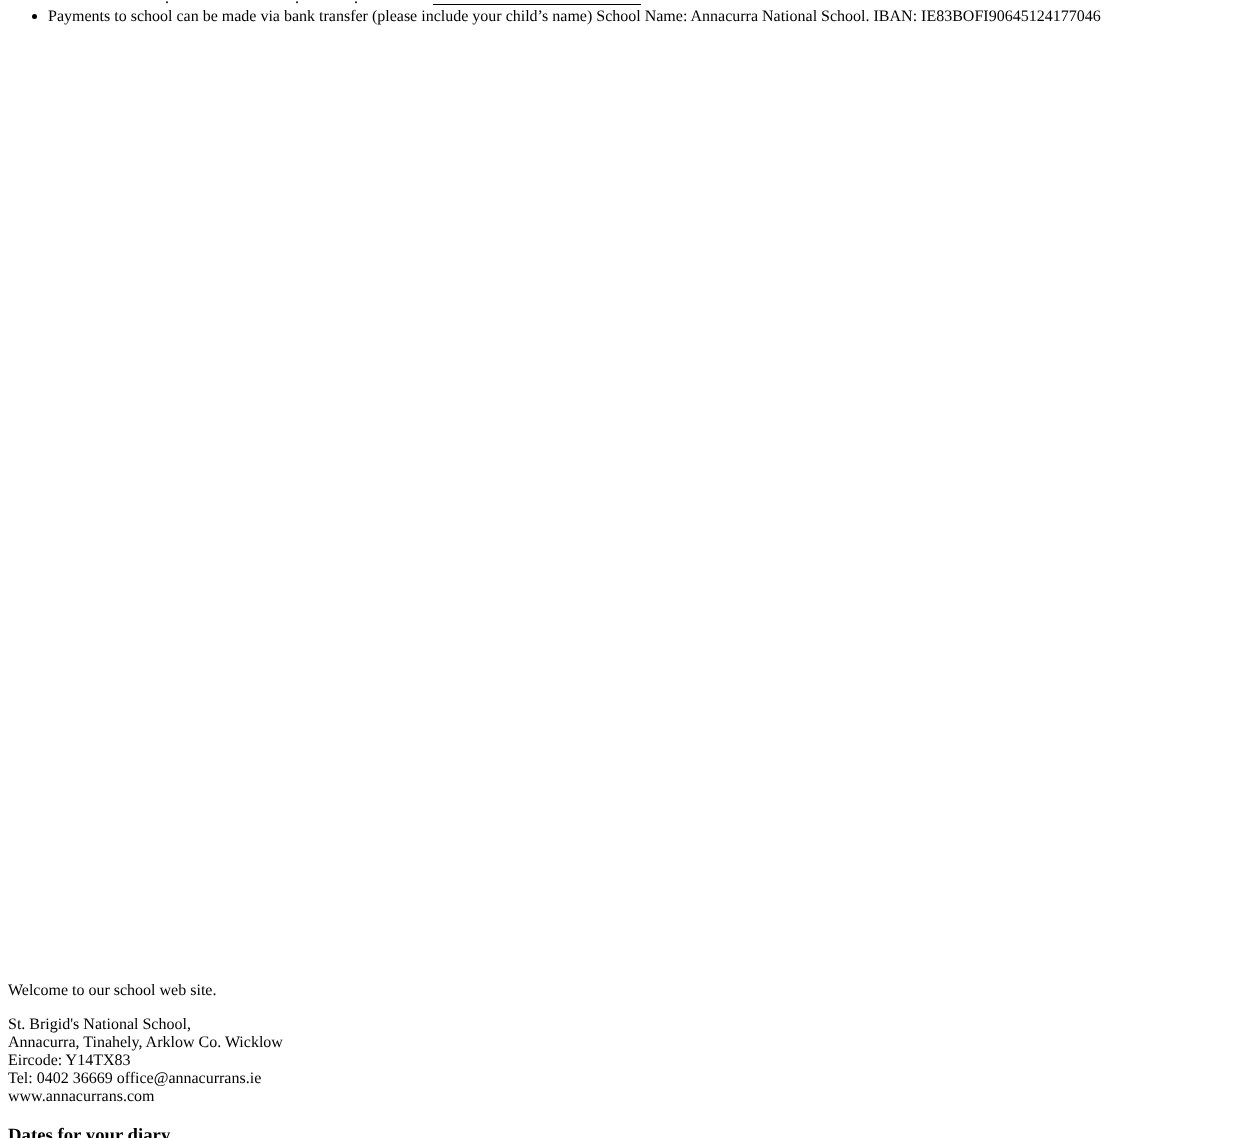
<svg xmlns="http://www.w3.org/2000/svg" xmlns:xlink="http://www.w3.org/1999/xlink" width="1248" height="1138" viewBox="0 0 1248 1138">
<style>
.cls-1{font:16px Liberation Serif;fill:#000000}
.cls-2{font:bold 18.75px Liberation Serif;fill:#000000}
</style>
<rect width="100%" height="100%" fill="#ffffff"/>
<rect fill="#000000" x="433" y="4" width="208" height="1"/>
<circle fill="#000000" cx="34.5" cy="16.5" r="2.5"/>
<text class="cls-1" x="165" y="3">.</text>
<text class="cls-1" x="295" y="3">.</text>
<text class="cls-1" x="354" y="3">.</text>
<text class="cls-1" x="48" y="21">Payments to school can be made via bank transfer (please include your child’s name) School Name: Annacurra National School. IBAN: IE83BOFI90645124177046</text>
<text class="cls-1" x="8" y="995">Welcome to our school web site.</text>
<text class="cls-1"><tspan x="8" y="1029">St. Brigid's National School,</tspan><tspan x="8" y="1047">Annacurra, Tinahely, Arklow Co. Wicklow</tspan><tspan x="8" y="1065">Eircode: Y14TX83</tspan><tspan x="8" y="1083">Tel: 0402 36669 office@annacurrans.ie</tspan><tspan x="8" y="1101">www.annacurrans.com</tspan></text>
<text class="cls-2" x="8" y="1141">Dates for your diary</text>
</svg>
